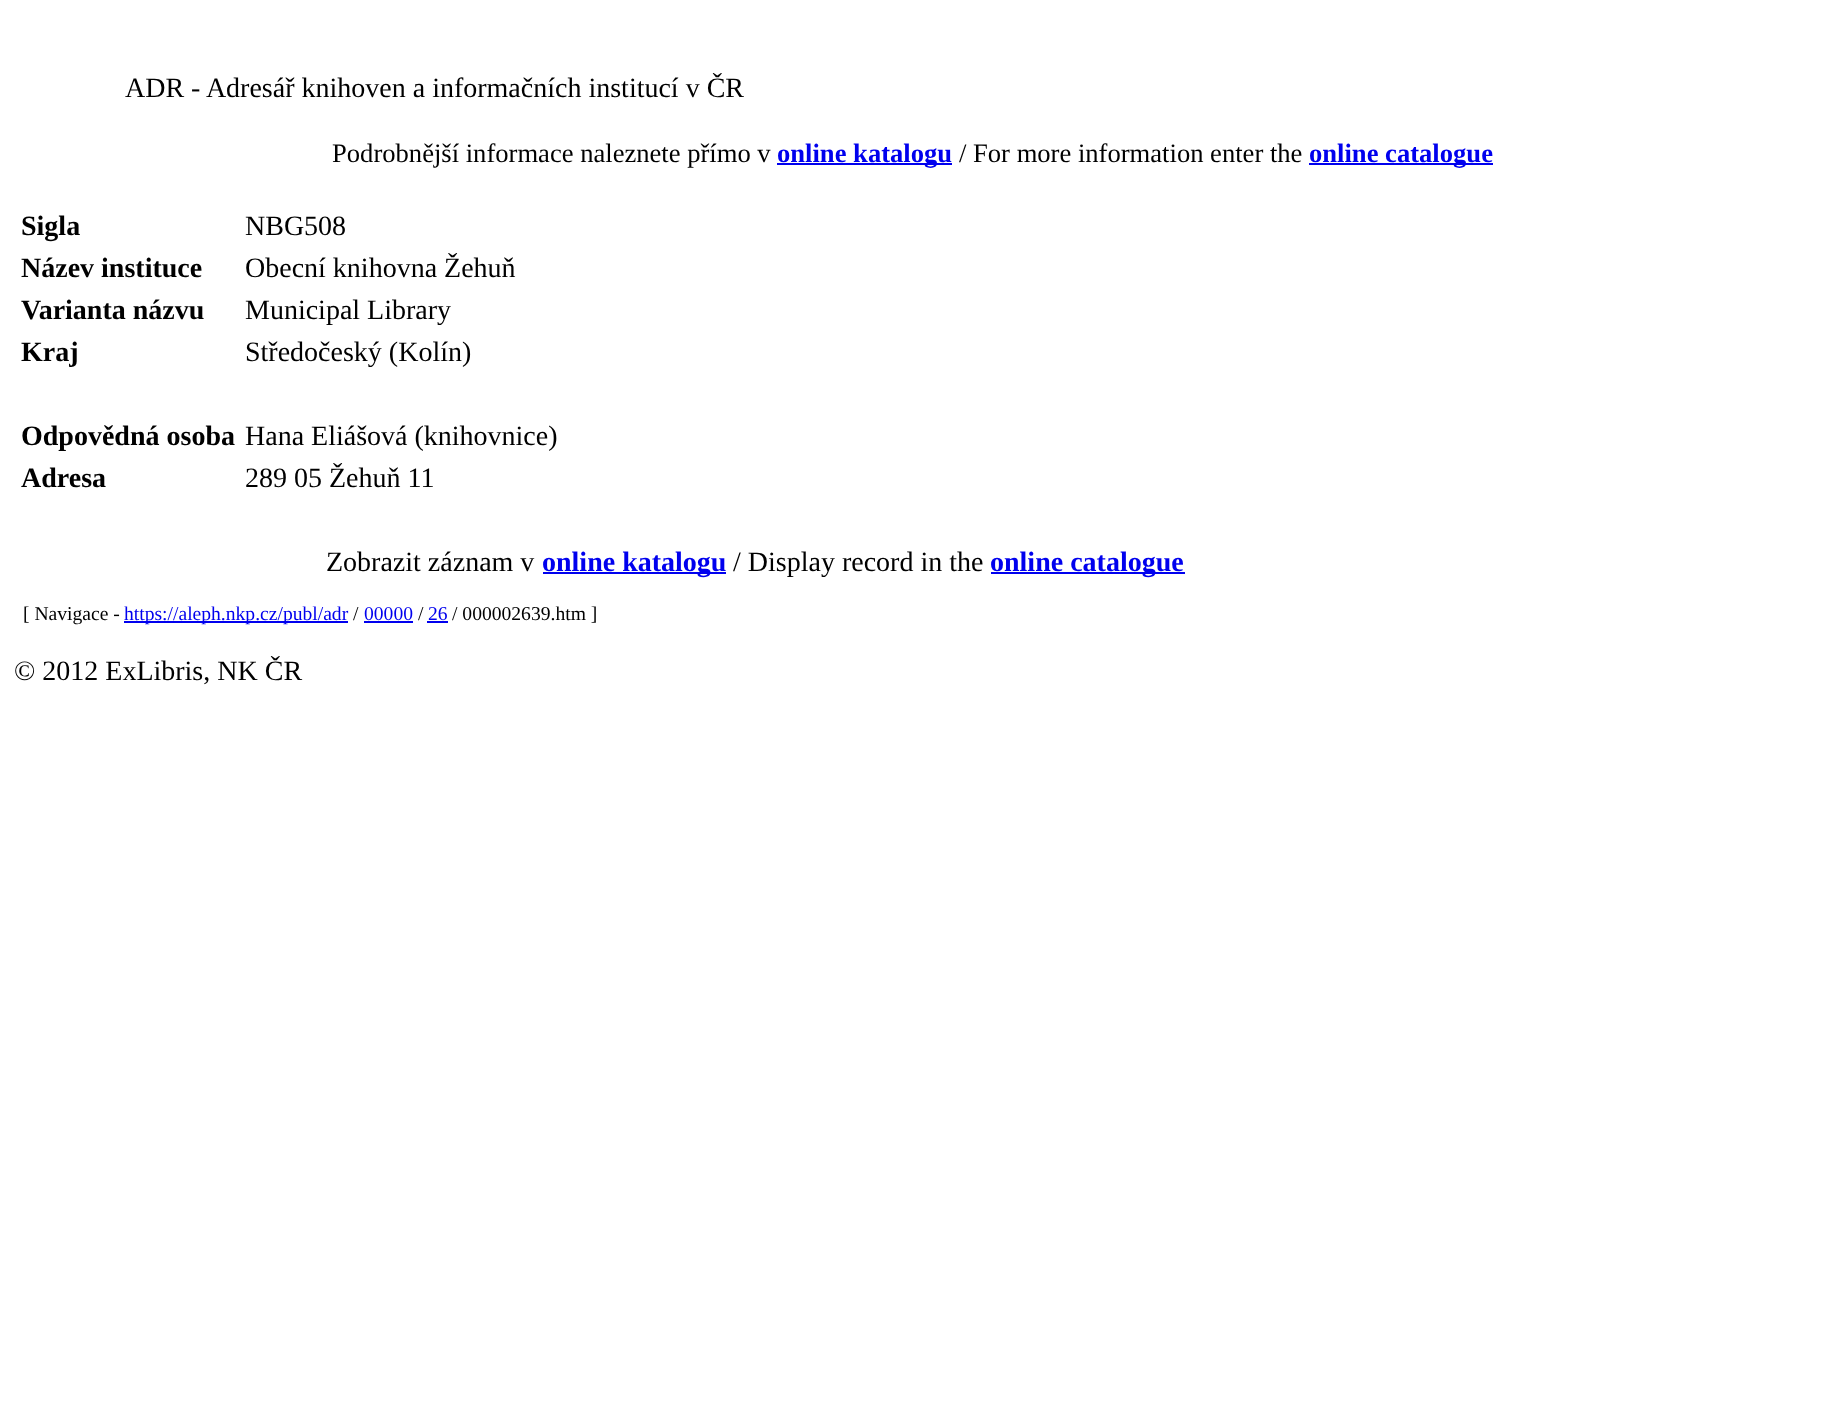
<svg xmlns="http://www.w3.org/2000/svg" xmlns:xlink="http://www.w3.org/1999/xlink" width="1825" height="1414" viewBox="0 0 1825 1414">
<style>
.cls-1{font:28px Liberation Serif;fill:#000000}
.cls-2{font:26.6px Liberation Serif;fill:#000000}
.cls-3{font:bold 26.6px Liberation Serif;fill:#0000ee}
.cls-4{font:bold 28px Liberation Serif;fill:#000000}
.cls-5{font:bold 28px Liberation Serif;fill:#0000ee}
.cls-6{font:19.6px Liberation Serif;fill:#000000}
.cls-7{font:19.6px Liberation Serif;fill:#0000ee}
</style>
<rect width="100%" height="100%" fill="#ffffff"/>
<rect fill="#0000ee" x="777" y="163" width="175" height="2"/>
<rect fill="#0000ee" x="1309" y="163" width="184" height="2"/>
<rect fill="#0000ee" x="543" y="572" width="183" height="2"/>
<rect fill="#0000ee" x="991" y="572" width="194" height="2"/>
<rect fill="#0000ee" x="124" y="621" width="224" height="2"/>
<rect fill="#0000ee" x="364" y="621" width="49" height="2"/>
<rect fill="#0000ee" x="427" y="621" width="21" height="2"/>
<text class="cls-1" x="125" y="97">ADR - Adresář knihoven a informačních institucí v ČR</text>
<text class="cls-2" x="332" y="162">Podrobnější informace naleznete přímo v</text>
<text class="cls-3" x="777" y="162">online katalogu</text>
<text class="cls-2" x="959" y="162">/ For more information enter the</text>
<text class="cls-3" x="1309" y="162">online catalogue</text>
<text class="cls-4" x="21" y="235">Sigla</text>
<text class="cls-1" x="245" y="235">NBG508</text>
<text class="cls-4" x="21" y="277">Název instituce</text>
<text class="cls-1" x="245" y="277">Obecní knihovna Žehuň</text>
<text class="cls-4" x="21" y="319">Varianta názvu</text>
<text class="cls-1" x="245" y="319">Municipal Library</text>
<text class="cls-4" x="21" y="361">Kraj</text>
<text class="cls-1" x="245" y="361">Středočeský (Kolín)</text>
<text class="cls-4" x="21" y="445">Odpovědná osoba</text>
<text class="cls-1" x="245" y="445">Hana Eliášová (knihovnice)</text>
<text class="cls-4" x="21" y="487">Adresa</text>
<text class="cls-1" x="245" y="487">289 05 Žehuň 11</text>
<text class="cls-1" x="326" y="571">Zobrazit záznam v</text>
<text class="cls-5" x="542" y="571">online katalogu</text>
<text class="cls-1" x="733" y="571">/ Display record in the</text>
<text class="cls-5" x="990" y="571">online catalogue</text>
<text class="cls-6" x="23" y="620">[ Navigace -</text>
<text class="cls-7" x="124" y="620">https://aleph.nkp.cz/publ/adr</text>
<text class="cls-6" x="353" y="620">/</text>
<text class="cls-7" x="364" y="620">00000</text>
<text class="cls-6" x="418" y="620">/</text>
<text class="cls-7" x="428" y="620">26</text>
<text class="cls-6" x="452" y="620">/ 000002639.htm ]</text>
<text class="cls-1" x="14" y="680">© 2012 ExLibris, NK ČR</text>
</svg>
